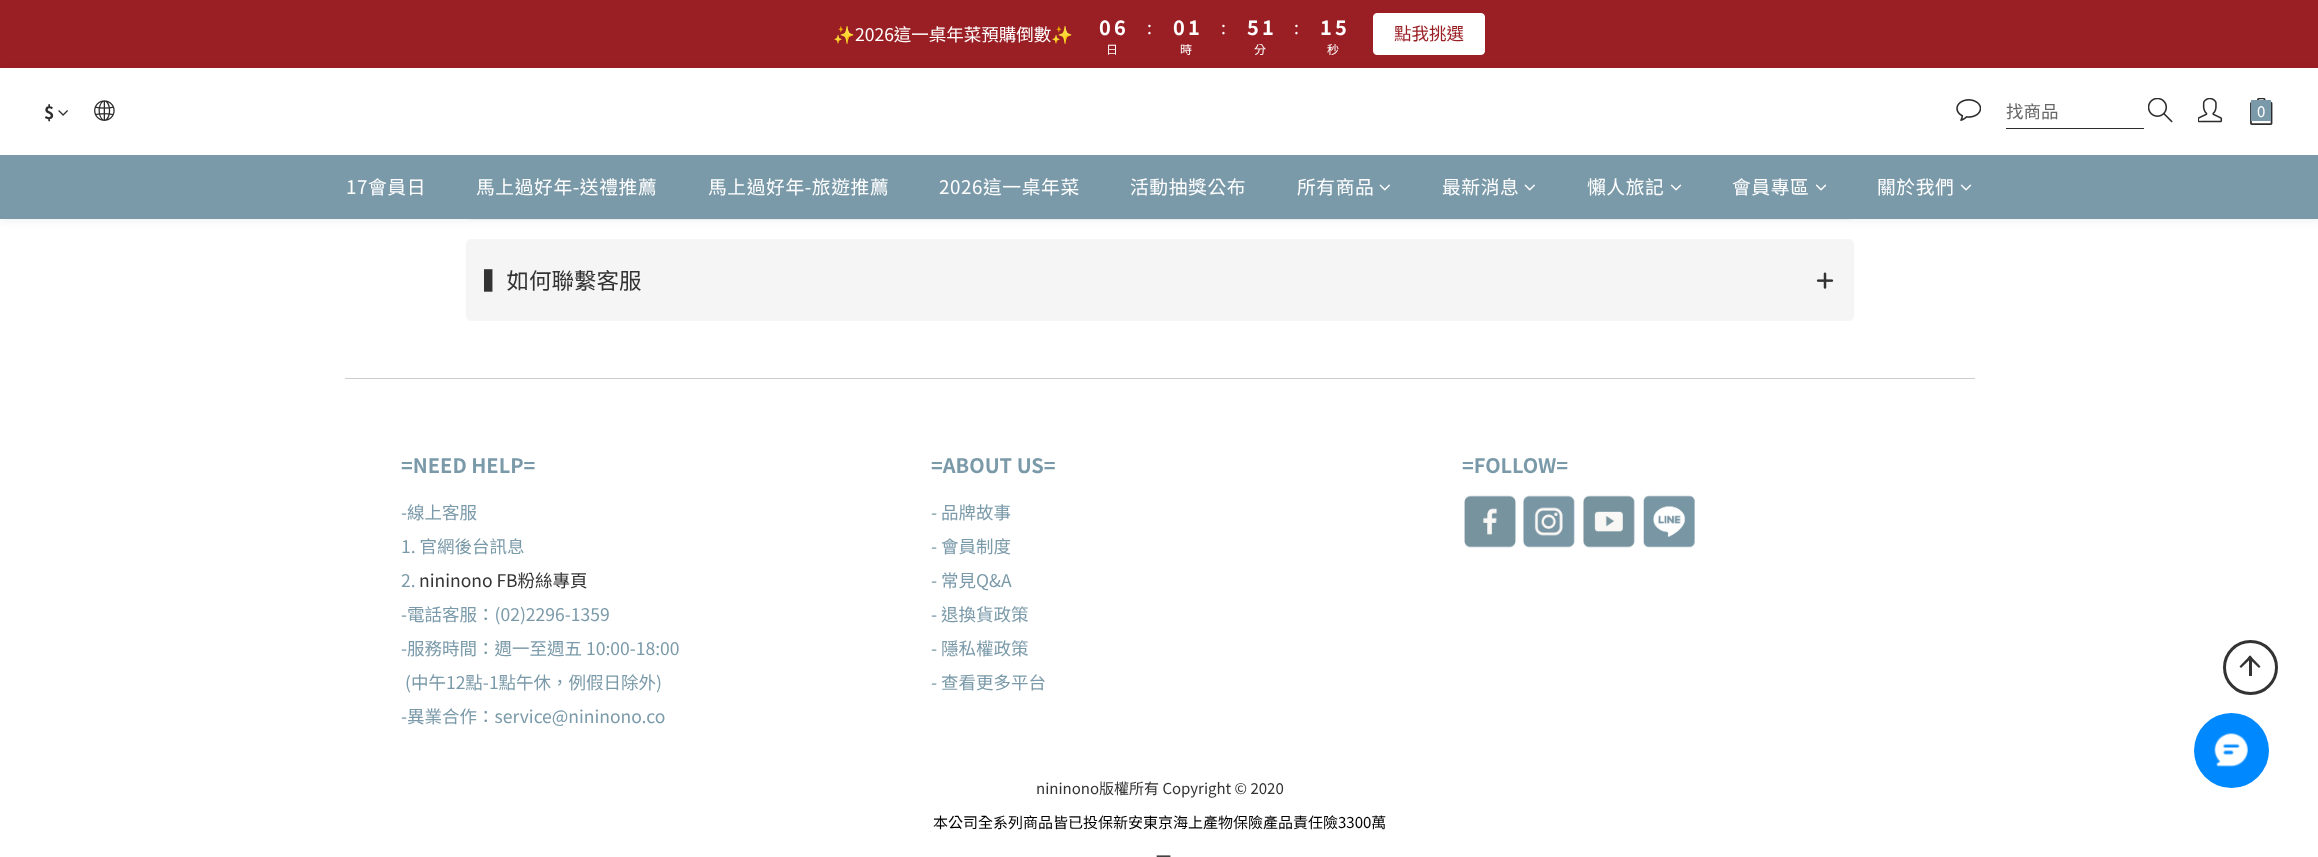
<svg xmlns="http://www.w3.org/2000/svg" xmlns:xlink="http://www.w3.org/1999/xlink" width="2318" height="857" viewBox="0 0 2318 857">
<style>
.cls-1{font:17.5px Noto Color Emoji;fill:#ffffff}
.cls-2{font:17.5px Noto Sans TC;fill:#ffffff}
.cls-3{font:bold 20px Noto Sans TC;fill:#ffffff}
.cls-4{font:12px Noto Sans TC;fill:#ffffff}
.cls-5{font:17.5px Noto Sans TC;fill:#9a1f24}
.cls-6{font:bold 17.5px Noto Sans TC;fill:#2c2c2c}
.cls-7{font:17.5px Noto Sans TC;fill:#666666}
.cls-8{font:15px Noto Sans TC;fill:#ffffff}
.cls-9{font:18.75px Noto Sans TC;letter-spacing:0.6px;fill:#ffffff}
.cls-10{font:22.5px Noto Sans TC;fill:#333333}
.cls-11{font:bold 20px Noto Sans TC;fill:#7b9aa9}
.cls-12{font:17.5px Noto Sans TC;fill:#7b9aa9}
.cls-13{font:17.5px Noto Sans TC;fill:#333333}
.cls-14{font:15px Noto Sans TC;fill:#333333}
.cls-15{font:15px Noto Sans TC;fill:#000000}
</style>
<defs>
<clipPath id="clip1"><rect x="834" y="21" width="239" height="25"/></clipPath>
</defs>
<rect width="100%" height="100%" fill="#ffffff"/>
<rect fill="#9a1f24" x="0" y="0" width="2318" height="68"/>
<rect fill="#ffffff" stroke="#ffffff" x="1373.5" y="13.5" width="111" height="41" rx="3.5"/>
<rect fill="#f5f5f5" x="466" y="139" width="1388" height="81" rx="5"/>
<rect fill="#000000" fill-opacity="0.06" filter="blur(4px)" x="0" y="70" width="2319" height="151"/>
<rect fill="#ffffff" x="0" y="68" width="2318" height="87"/>
<image xlink:href="image0.png" x="58" y="110" width="10" height="6"/>
<image xlink:href="image1.png" x="94" y="100" width="21" height="21"/>
<image xlink:href="image2.png" x="1956" y="99" width="25" height="22"/>
<rect fill="#2c2c2c" x="2006" y="128" width="138" height="1"/>
<image xlink:href="image3.png" x="2148" y="98" width="25" height="25"/>
<image xlink:href="image4.png" x="2198" y="98" width="25" height="25"/>
<image xlink:href="image5.png" x="2250" y="98" width="23" height="27"/>
<rect fill="#7b9aa9" x="2251" y="100" width="20" height="21"/>
<rect fill="#7b9aa9" x="0" y="155" width="2318" height="64"/>
<image xlink:href="image6.png" x="1379" y="184" width="11" height="7"/>
<image xlink:href="image6.png" x="1524" y="184" width="11" height="7"/>
<image xlink:href="image7.png" x="1670" y="184" width="12" height="7"/>
<image xlink:href="image7.png" x="1815" y="184" width="12" height="7"/>
<image xlink:href="image7.png" x="1960" y="184" width="12" height="7"/>
<rect fill="#f5f5f5" x="466" y="239" width="1388" height="82" rx="5"/>
<image xlink:href="image8.png" x="1816" y="272" width="18" height="17"/>
<rect fill="#cccccc" x="345" y="378" width="1630" height="1"/>
<image xlink:href="image9.png" x="1464" y="495" width="52" height="53"/>
<image xlink:href="image10.png" x="1523" y="495" width="52" height="53"/>
<image xlink:href="image11.png" x="1583" y="495" width="52" height="53"/>
<image xlink:href="image12.png" x="1643" y="495" width="52" height="53"/>
<circle fill="none" stroke="#333333" stroke-width="3" cx="2250.5" cy="667.5" r="26"/>
<path fill="#333333" d="M2250 655.5L2260.5 666.5L2259 668L2248 657.5Z"/>
<path fill="#333333" d="M2250 655.5L2252 657.5L2241 668L2239.5 666.5Z"/>
<rect fill="#333333" x="2249" y="659" width="3" height="17"/>
<circle fill="#0088fe" cx="2231.5" cy="750.5" r="37.5"/>
<image xlink:href="image13.png" x="2214" y="733" width="34" height="34"/>
<g clip-path="url(#clip1)">
<text class="cls-1" x="833" y="41">✨</text>
</g>
<text class="cls-2" x="855" y="41">2026這一桌年菜預購倒數</text>
<text class="cls-1" x="1051" y="41">✨</text>
<text class="cls-3" x="1099" y="35">0</text>
<text class="cls-3" x="1114" y="35">6</text>
<text class="cls-4" x="1106" y="54">日</text>
<text class="cls-2" x="1147" y="34">:</text>
<text class="cls-3" x="1173" y="35">0</text>
<text class="cls-3" x="1188" y="35">1</text>
<text class="cls-4" x="1180" y="54">時</text>
<text class="cls-2" x="1221" y="34">:</text>
<text class="cls-3" x="1247" y="35">5</text>
<text class="cls-3" x="1262" y="35">1</text>
<text class="cls-4" x="1254" y="54">分</text>
<text class="cls-2" x="1294" y="34">:</text>
<text class="cls-3" x="1320" y="35">1</text>
<text class="cls-3" x="1335" y="35">5</text>
<text class="cls-4" x="1327" y="54">秒</text>
<text class="cls-5" x="1394" y="40">點我挑選</text>
<text class="cls-6" x="44" y="119">$</text>
<text class="cls-7" x="2006" y="118">找商品</text>
<text class="cls-8" x="2257" y="117">0</text>
<text class="cls-9" x="346" y="194">17會員日</text>
<text class="cls-9" x="476" y="194">馬上過好年-送禮推薦</text>
<text class="cls-9" x="708" y="194">馬上過好年-旅遊推薦</text>
<text class="cls-9" x="939" y="194">2026這一桌年菜</text>
<text class="cls-9" x="1130" y="194">活動抽獎公布</text>
<text class="cls-9" x="1297" y="194">所有商品</text>
<text class="cls-9" x="1442" y="194">最新消息</text>
<text class="cls-9" x="1587" y="194">懶人旅記</text>
<text class="cls-9" x="1732" y="194">會員專區</text>
<text class="cls-9" x="1877" y="194">關於我們</text>
<text class="cls-10" x="484" y="289">▍如何聯繫客服</text>
<text class="cls-11" x="401" y="473">=NEED HELP=</text>
<text class="cls-12"><tspan x="401" y="519">-線上客服</tspan><tspan x="401" y="553">1. 官網後台訊息</tspan><tspan x="401" y="587">2.</tspan></text>
<text class="cls-13" x="419" y="587">nininono FB粉絲專頁</text>
<text class="cls-12"><tspan x="401" y="621">-電話客服：(02)2296-1359</tspan><tspan x="401" y="655">-服務時間：週一至週五 10:00-18:00</tspan></text>
<text class="cls-12" x="405" y="689">(中午12點-1點午休，例假日除外)</text>
<text class="cls-12" x="401" y="723">-異業合作：service@nininono.co</text>
<text class="cls-11" x="931" y="473">=ABOUT US=</text>
<text class="cls-12"><tspan x="931" y="519">- 品牌故事</tspan><tspan x="931" y="553">- 會員制度</tspan><tspan x="931" y="587">- 常見Q&amp;A</tspan><tspan x="931" y="621">- 退換貨政策</tspan><tspan x="931" y="655">- 隱私權政策</tspan><tspan x="931" y="689">- 查看更多平台</tspan></text>
<text class="cls-11" x="1462" y="473">=FOLLOW=</text>
<text class="cls-14" x="1036" y="794">nininono版權所有 Copyright © 2020</text>
<text class="cls-15" x="933" y="828">本公司全系列商品皆已投保新安東京海上產物保險產品責任險3300萬</text>
<text class="cls-15" x="1156" y="862">一</text>
</svg>
